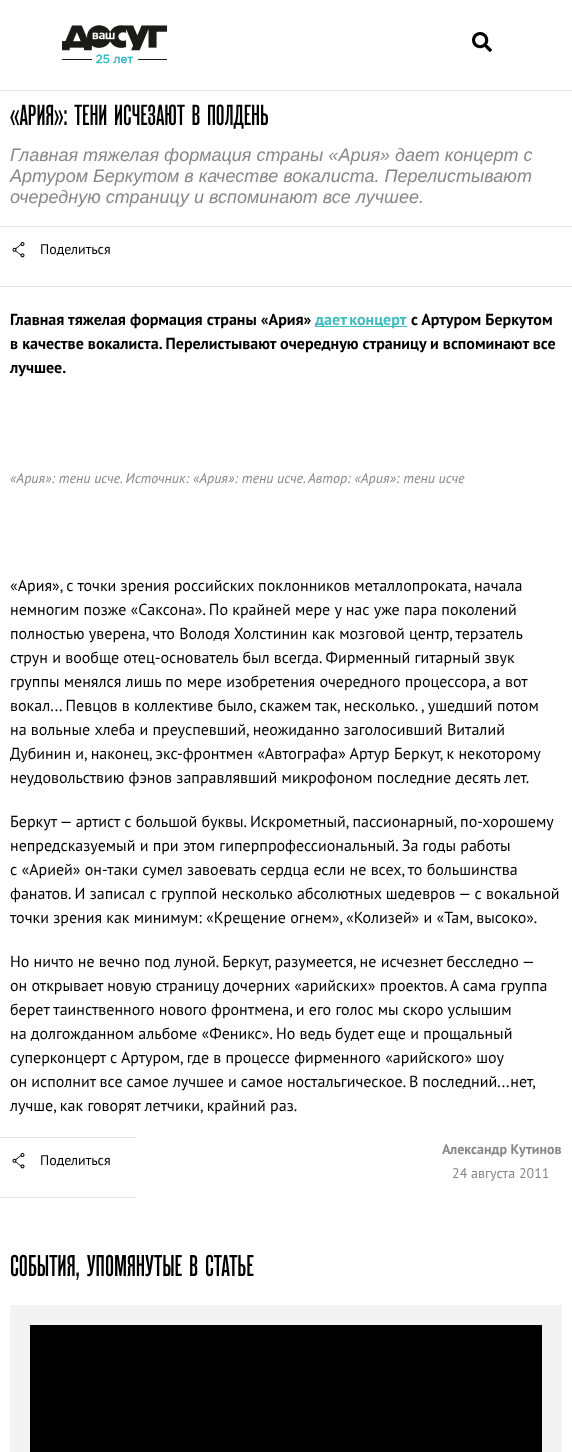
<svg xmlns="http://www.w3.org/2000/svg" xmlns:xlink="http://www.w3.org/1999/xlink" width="572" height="1452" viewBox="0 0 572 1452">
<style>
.cls-1{font:500 29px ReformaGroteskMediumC;fill:#000000}
.cls-2{font:italic 18px Liberation Sans;fill:#888888}
.cls-3{font:14px PT Sans;fill:#000000}
.cls-4{font:bold 16px PT Sans;fill:#000000}
.cls-5{font:bold 16px PT Sans;fill:#42bcbd}
.cls-6{font:italic 14px PT Sans;fill:#888888}
.cls-7{font:16px PT Sans;fill:#000000}
.cls-8{font:bold 14px PT Sans;fill:#888888}
.cls-9{font:14px PT Sans;fill:#888888}
.cls-10{font:500 30px ReformaGroteskMediumC;fill:#000000}
</style>
<rect width="100%" height="100%" fill="#ffffff"/>
<rect fill="#e5e5e5" x="0" y="90" width="572" height="1"/>
<image xlink:href="image0.png" x="62" y="25" width="106" height="39"/>
<image xlink:href="image1.png" x="472" y="32" width="20" height="20"/>
<rect fill="#e5e5e5" x="0" y="226" width="572" height="1"/>
<rect fill="#e5e5e5" x="0" y="286" width="572" height="1"/>
<image xlink:href="image2.png" x="12" y="242" width="13" height="16"/>
<rect fill="#42bcbd" x="315" y="326" width="92" height="1"/>
<rect fill="#e5e5e5" x="0" y="1137" width="136" height="1"/>
<rect fill="#e5e5e5" x="0" y="1197" width="136" height="1"/>
<image xlink:href="image3.png" x="12" y="1153" width="13" height="16"/>
<rect fill="#f3f3f3" x="10" y="1305" width="552" height="147"/>
<rect fill="#000000" x="30" y="1325" width="512" height="127"/>
<text class="cls-1" x="10" y="125">«АРИЯ»: ТЕНИ ИСЧЕЗАЮТ В ПОЛДЕНЬ</text>
<text class="cls-2"><tspan x="10" y="161">Главная тяжелая формация страны «Ария» дает концерт с</tspan><tspan x="10" y="182">Артуром Беркутом в качестве вокалиста. Перелистывают</tspan><tspan x="10" y="203">очередную страницу и вспоминают все лучшее.</tspan></text>
<text class="cls-3" x="40" y="254">Поделиться</text>
<text class="cls-4" x="10" y="325">Главная тяжелая формация страны «Ария»</text>
<text class="cls-5" x="315" y="325" word-spacing="-1">дает концерт</text>
<text class="cls-4" x="411" y="325">с Артуром Беркутом</text>
<text class="cls-4"><tspan x="10" y="349">в качестве вокалиста. Перелистывают очередную страницу и вспоминают все</tspan><tspan x="10" y="373">лучшее.</tspan></text>
<text class="cls-6" x="10" y="483">«Ария»: тени исче. Источник: «Ария»: тени исче. Автор: «Ария»: тени исче</text>
<text class="cls-7"><tspan x="10" y="591">«Ария», с точки зрения российских поклонников металлопроката, начала</tspan><tspan x="10" y="615">немногим позже «Саксона». По крайней мере у нас уже пара поколений</tspan><tspan x="10" y="639">полностью уверена, что Володя Холстинин как мозговой центр, терзатель</tspan><tspan x="10" y="663">струн и вообще отец-основатель был всегда. Фирменный гитарный звук</tspan><tspan x="10" y="687">группы менялся лишь по мере изобретения очередного процессора, а вот</tspan><tspan x="10" y="711">вокал... Певцов в коллективе было, скажем так, несколько. , ушедший потом</tspan><tspan x="10" y="735">на вольные хлеба и преуспевший, неожиданно заголосивший Виталий</tspan><tspan x="10" y="759">Дубинин и, наконец, экс-фронтмен «Автографа» Артур Беркут, к некоторому</tspan><tspan x="10" y="783">неудовольствию фэнов заправлявший микрофоном последние десять лет.</tspan></text>
<text class="cls-7"><tspan x="10" y="827">Беркут — артист с большой буквы. Искрометный, пассионарный, по-хорошему</tspan><tspan x="10" y="851">непредсказуемый и при этом гиперпрофессиональный. За годы работы</tspan><tspan x="10" y="875">с «Арией» он-таки сумел завоевать сердца если не всех, то большинства</tspan><tspan x="10" y="899">фанатов. И записал с группой несколько абсолютных шедевров — с вокальной</tspan><tspan x="10" y="923">точки зрения как минимум: «Крещение огнем», «Колизей» и «Там, высоко».</tspan></text>
<text class="cls-7"><tspan x="10" y="967">Но ничто не вечно под луной. Беркут, разумеется, не исчезнет бесследно —</tspan><tspan x="10" y="991">он открывает новую страницу дочерних «арийских» проектов. А сама группа</tspan><tspan x="10" y="1015">берет таинственного нового фронтмена, и его голос мы скоро услышим</tspan><tspan x="10" y="1039">на долгожданном альбоме «Феникс». Но ведь будет еще и прощальный</tspan><tspan x="10" y="1063">суперконцерт с Артуром, где в процессе фирменного «арийского» шоу</tspan><tspan x="10" y="1087" word-spacing="-0.25">он исполнит все самое лучшее и самое ностальгическое. В последний...нет,</tspan><tspan x="10" y="1111">лучше, как говорят летчики, крайний раз.</tspan></text>
<text class="cls-3" x="40" y="1165">Поделиться</text>
<text class="cls-8" x="442" y="1154">Александр Кутинов</text>
<text class="cls-9" x="452" y="1178">24 августа 2011</text>
<text class="cls-10" x="10" y="1276">СОБЫТИЯ, УПОМЯНУТЫЕ В СТАТЬЕ</text>
</svg>
